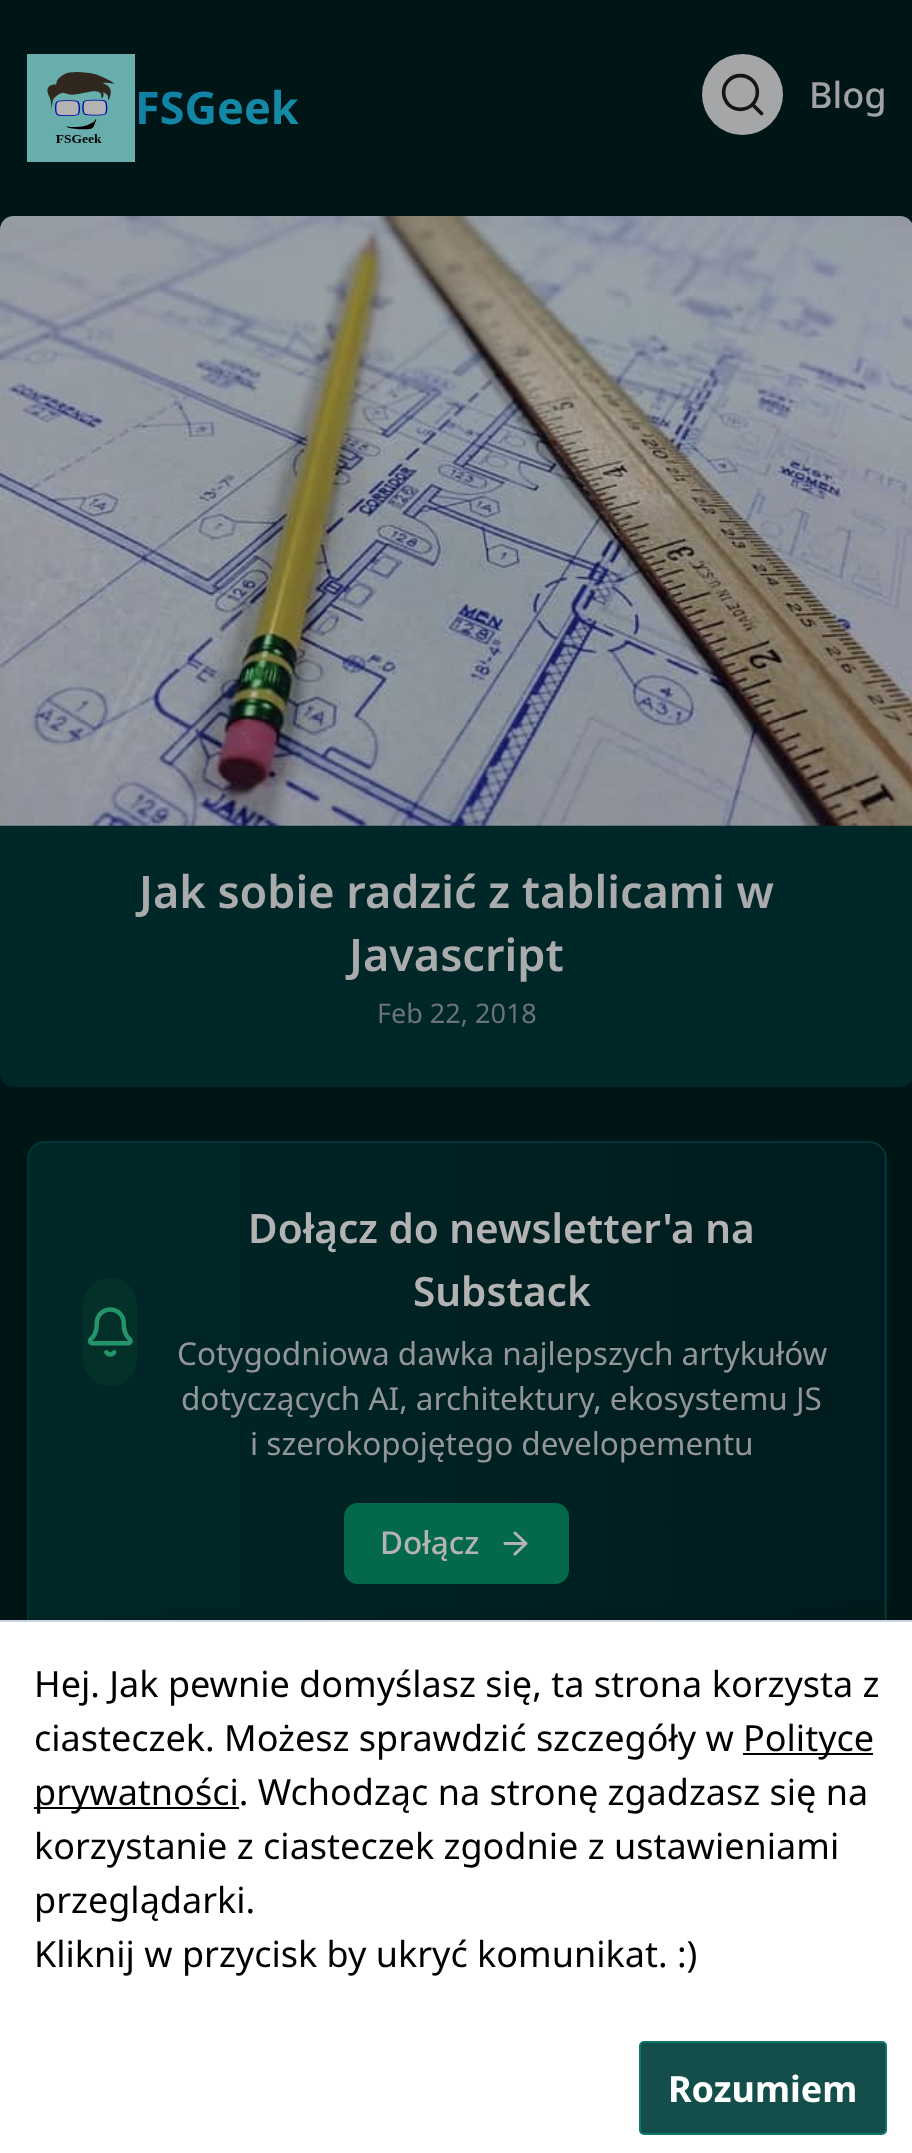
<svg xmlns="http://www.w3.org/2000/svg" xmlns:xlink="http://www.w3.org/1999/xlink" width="912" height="2153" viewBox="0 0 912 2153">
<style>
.cls-1{font:bold 45px Noto Sans;fill:url(#g3)}
.cls-2{font:500 36px Noto Sans;fill:#a0a2a5}
.cls-3{font:600 45px Noto Sans;fill:#aaabac}
.cls-4{font:27px Noto Sans;fill:#6d727a}
.cls-5{font:600 40.5px Noto Sans;fill:#b3b3b3}
.cls-6{font:31.5px Noto Sans;fill:#929599}
.cls-7{font:500 31.5px Noto Sans;fill:#b3b3b3}
.cls-8{font:36px Noto Sans;fill:#000000}
.cls-9{font:bold 36px Noto Sans;fill:#ffffff}
</style>
<defs>
<clipPath id="clip1"><rect x="27" y="1141" width="860" height="499" rx="18"/></clipPath>
<linearGradient id="g1" gradientUnits="userSpaceOnUse" x1="29" y1="1391" x2="884" y2="1391"><stop offset="0" stop-color="#002728"/><stop offset="1" stop-color="#001b1d"/></linearGradient>
<linearGradient id="g2" gradientUnits="userSpaceOnUse" x1="884" y1="1391" x2="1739" y2="1391"><stop offset="0" stop-color="#002728"/><stop offset="1" stop-color="#001b1d"/></linearGradient>
<linearGradient id="g3" gradientUnits="userSpaceOnUse" x1="126" y1="15" x2="200" y2="201"><stop offset="0" stop-color="#0a73a3"/><stop offset="1" stop-color="#1894a7"/></linearGradient>
</defs>
<rect width="100%" height="100%" fill="#001616"/>
<image xlink:href="image0.png" x="27" y="54" width="108" height="108"/>
<circle fill="#a5a6a8" cx="742.5" cy="94.5" r="40.5"/>
<path fill="none" stroke="#141517" stroke-width="3.6" stroke-linecap="round" stroke-linejoin="round" d="M752.5 104.5L761.5 113.5L752.5 104.5C745.5 111 735 111 728.5 104.5C722 97.5 722 87 728.5 80.5C735 74 745.5 74 752.5 80.5C759 87 759 97.5 752.5 104.5Z"/>
<rect fill="#002728" x="0" y="216" width="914" height="871" rx="14"/>
<image xlink:href="image1.png" x="0" y="216" width="912" height="610"/>
<g clip-path="url(#clip1)">
<rect fill="url(#g1)" x="29" y="1141" width="855" height="479"/>
<rect fill="url(#g2)" x="884" y="1141" width="3" height="479"/>
</g>
<rect fill="none" stroke="#003536" stroke-width="2" x="28" y="1142" width="858" height="497" rx="17"/>
<rect fill="#033029" x="83" y="1278" width="54" height="108" rx="27"/>
<image xlink:href="image2.png" x="87" y="1307" width="46" height="50"/>
<rect fill="#04694a" x="344" y="1503" width="225" height="81" rx="14"/>
<path fill="none" stroke="#b3b3b3" stroke-width="3" stroke-linecap="round" stroke-linejoin="round" d="M505 1543.5H526M515 1533L526 1543.5L515 1554"/>
<rect fill="#000000" fill-opacity="0.5" filter="blur(11px)" x="-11" y="1629" width="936" height="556"/>
<rect fill="#ffffff" x="0" y="1622" width="912" height="531"/>
<rect fill="#cbd6e2" x="0" y="1620" width="912" height="2"/>
<rect fill="#000000" x="743" y="1753" width="130" height="2"/>
<rect fill="#000000" x="34" y="1807" width="205" height="2"/>
<rect fill="#134e4a" stroke="#0f766e" stroke-width="2" x="640" y="2042" width="246" height="92" rx="4"/>
<text class="cls-1" x="135" y="124">FSGeek</text>
<text class="cls-2" x="809" y="108">Blog</text>
<text class="cls-3" x="139" y="908">Jak sobie radzić z tablicami w</text>
<text class="cls-3" x="349" y="971">Javascript</text>
<text class="cls-4" x="377" y="1023">Feb 22, 2018</text>
<text class="cls-5" x="248" y="1243">Dołącz do newsletter'a na</text>
<text class="cls-5" x="413" y="1306">Substack</text>
<text class="cls-6" x="177" y="1365">Cotygodniowa dawka najlepszych artykułów</text>
<text class="cls-6" x="181" y="1410">dotyczących AI, architektury, ekosystemu JS</text>
<text class="cls-6" x="250" y="1455">i szerokopojętego developementu</text>
<text class="cls-7" x="380" y="1554">Dołącz</text>
<text class="cls-8"><tspan x="34" y="1697">Hej. Jak pewnie domyślasz się, ta strona korzysta z</tspan><tspan x="34" y="1751">ciasteczek. Możesz sprawdzić szczegóły w</tspan></text>
<text class="cls-8" x="743" y="1751">Polityce</text>
<text class="cls-8"><tspan x="34" y="1805">prywatności. Wchodząc na stronę zgadzasz się na</tspan><tspan x="34" y="1859">korzystanie z ciasteczek zgodnie z ustawieniami</tspan><tspan x="34" y="1913">przeglądarki.</tspan><tspan x="34" y="1967">Kliknij w przycisk by ukryć komunikat. :)</tspan></text>
<text class="cls-9" x="668" y="2102">Rozumiem</text>
</svg>
